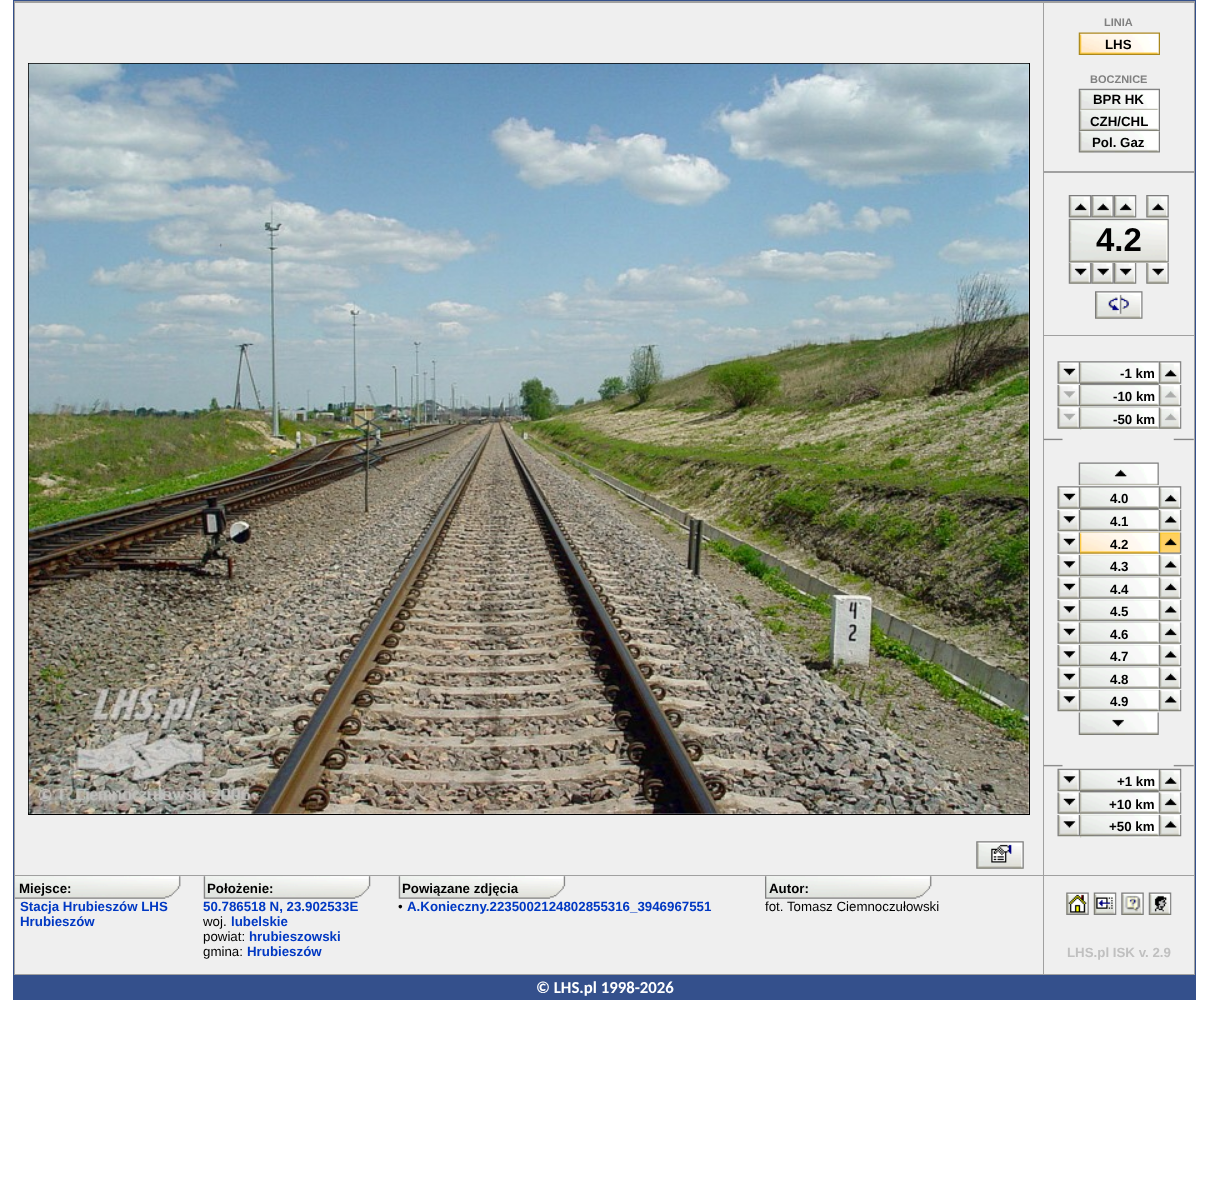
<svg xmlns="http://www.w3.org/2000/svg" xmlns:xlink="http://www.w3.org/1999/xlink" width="1208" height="1186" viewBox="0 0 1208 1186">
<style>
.cls-1{font:bold 11px Liberation Sans;fill:#808080}
.cls-2{font:bold 13.3px Liberation Sans;fill:#000000}
.cls-3{font:bold 33px Liberation Sans;fill:#000000}
.cls-4{font:bold 13.3px Liberation Sans;fill:#0038c3}
.cls-5{font:13.3px Liberation Sans;fill:#000000}
.cls-6{font:bold 13.3px Liberation Sans;fill:#c0c0c0}
.cls-7{font:bold 16.75px Carlito;fill:#ffffff}
</style>
<rect width="100%" height="100%" fill="#ffffff"/>
<rect fill="#34508c" x="13" y="0" width="1183" height="1000"/>
<rect fill="#a0a0a0" x="14" y="1" width="1181" height="974"/>
<rect fill="#efefef" x="15" y="3" width="1028" height="872"/>
<rect fill="none" stroke="#000000" x="28.5" y="63.5" width="1001" height="751"/>
<image xlink:href="image0.png" x="28" y="63" width="1001" height="751"/>
<rect fill="#efefef" x="1044" y="3" width="150" height="168"/>
<image xlink:href="image1.png" x="1078" y="32" width="82" height="23"/>
<image xlink:href="image2.png" x="1078" y="88" width="82" height="22"/>
<image xlink:href="image3.png" x="1078" y="110" width="82" height="22"/>
<rect fill="#efefef" x="1079" y="131" width="81" height="1"/>
<image xlink:href="image4.png" x="1078" y="131" width="82" height="22"/>
<rect fill="#efefef" x="1044" y="173" width="150" height="162"/>
<image xlink:href="image5.png" x="1068" y="195" width="24" height="23"/>
<image xlink:href="image6.png" x="1091" y="195" width="23" height="23"/>
<image xlink:href="image7.png" x="1113" y="195" width="24" height="23"/>
<image xlink:href="image8.png" x="1146" y="195" width="23" height="23"/>
<image xlink:href="image10.png" x="1068" y="262" width="24" height="22"/>
<rect fill="#efefef" x="1069" y="262" width="23" height="1"/>
<image xlink:href="image9.png" x="1068" y="218" width="101" height="45"/>
<image xlink:href="image11.png" x="1091" y="263" width="23" height="21"/>
<image xlink:href="image12.png" x="1113" y="263" width="24" height="21"/>
<image xlink:href="image13.png" x="1146" y="263" width="23" height="21"/>
<image xlink:href="image14.png" x="1095" y="291" width="48" height="28"/>
<rect fill="#efefef" x="1044" y="336" width="150" height="539"/>
<image xlink:href="image15.png" x="1057" y="361" width="23" height="23"/>
<image xlink:href="image16.png" x="1080" y="361" width="79" height="24"/>
<image xlink:href="image17.png" x="1158" y="361" width="24" height="23"/>
<image xlink:href="image18.png" x="1057" y="385" width="23" height="22"/>
<image xlink:href="image19.png" x="1080" y="385" width="79" height="23"/>
<image xlink:href="image20.png" x="1158" y="385" width="24" height="22"/>
<image xlink:href="image21.png" x="1057" y="407" width="23" height="22"/>
<image xlink:href="image22.png" x="1080" y="407" width="79" height="23"/>
<image xlink:href="image23.png" x="1158" y="407" width="24" height="22"/>
<image xlink:href="image24.png" x="1043" y="438" width="151" height="3"/>
<image xlink:href="image25.png" x="1078" y="462" width="81" height="23"/>
<image xlink:href="image15.png" x="1057" y="486" width="23" height="23"/>
<image xlink:href="image16.png" x="1080" y="486" width="79" height="24"/>
<image xlink:href="image17.png" x="1158" y="486" width="24" height="23"/>
<image xlink:href="image26.png" x="1057" y="510" width="23" height="22"/>
<image xlink:href="image19.png" x="1080" y="510" width="79" height="23"/>
<image xlink:href="image27.png" x="1158" y="510" width="24" height="22"/>
<image xlink:href="image28.png" x="1057" y="532" width="23" height="22"/>
<image xlink:href="image29.png" x="1080" y="532" width="79" height="23"/>
<image xlink:href="image30.png" x="1158" y="532" width="24" height="22"/>
<image xlink:href="image26.png" x="1057" y="555" width="23" height="22"/>
<image xlink:href="image19.png" x="1080" y="555" width="79" height="23"/>
<image xlink:href="image27.png" x="1158" y="555" width="24" height="22"/>
<image xlink:href="image31.png" x="1057" y="577" width="23" height="22"/>
<image xlink:href="image22.png" x="1080" y="577" width="79" height="23"/>
<image xlink:href="image32.png" x="1158" y="577" width="24" height="22"/>
<image xlink:href="image26.png" x="1057" y="600" width="23" height="22"/>
<image xlink:href="image19.png" x="1080" y="600" width="79" height="23"/>
<image xlink:href="image27.png" x="1158" y="600" width="24" height="22"/>
<image xlink:href="image28.png" x="1057" y="622" width="23" height="22"/>
<image xlink:href="image22.png" x="1080" y="622" width="79" height="23"/>
<image xlink:href="image33.png" x="1158" y="622" width="24" height="22"/>
<image xlink:href="image26.png" x="1057" y="645" width="23" height="22"/>
<image xlink:href="image19.png" x="1080" y="645" width="79" height="23"/>
<image xlink:href="image27.png" x="1158" y="645" width="24" height="22"/>
<image xlink:href="image28.png" x="1057" y="667" width="23" height="22"/>
<image xlink:href="image22.png" x="1080" y="667" width="79" height="23"/>
<image xlink:href="image33.png" x="1158" y="667" width="24" height="22"/>
<image xlink:href="image26.png" x="1057" y="690" width="23" height="22"/>
<image xlink:href="image19.png" x="1080" y="690" width="79" height="23"/>
<image xlink:href="image27.png" x="1158" y="690" width="24" height="22"/>
<image xlink:href="image34.png" x="1078" y="712" width="81" height="23"/>
<image xlink:href="image35.png" x="1043" y="764" width="151" height="3"/>
<image xlink:href="image36.png" x="1057" y="768" width="23" height="24"/>
<image xlink:href="image37.png" x="1080" y="768" width="79" height="25"/>
<image xlink:href="image38.png" x="1158" y="768" width="24" height="24"/>
<image xlink:href="image28.png" x="1057" y="792" width="23" height="22"/>
<image xlink:href="image39.png" x="1080" y="792" width="79" height="23"/>
<image xlink:href="image40.png" x="1158" y="792" width="24" height="22"/>
<image xlink:href="image26.png" x="1057" y="815" width="23" height="22"/>
<image xlink:href="image19.png" x="1080" y="815" width="79" height="23"/>
<image xlink:href="image27.png" x="1158" y="815" width="24" height="22"/>
<rect fill="#efefef" x="15" y="876" width="1028" height="98"/>
<image xlink:href="image41.png" x="15" y="876" width="166" height="23"/>
<image xlink:href="image42.png" x="203" y="876" width="168" height="23"/>
<image xlink:href="image43.png" x="398" y="876" width="168" height="23"/>
<image xlink:href="image44.png" x="765" y="876" width="167" height="23"/>
<image xlink:href="image45.png" x="976" y="841" width="48" height="28"/>
<rect fill="#efefef" x="1044" y="876" width="150" height="98"/>
<image xlink:href="image46.png" x="1066" y="892" width="23" height="23"/>
<image xlink:href="image47.png" x="1093" y="892" width="24" height="23"/>
<image xlink:href="image48.png" x="1121" y="892" width="23" height="23"/>
<image xlink:href="image49.png" x="1148" y="892" width="24" height="23"/>
<text class="cls-1" x="1104" y="26">LINIA</text>
<text class="cls-2" x="1105" y="49">LHS</text>
<text class="cls-1" x="1090" y="83">BOCZNICE</text>
<text class="cls-2" x="1093" y="104">BPR HK</text>
<text class="cls-2" x="1090" y="126">CZH/CHL</text>
<text class="cls-2" x="1092" y="147">Pol. Gaz</text>
<text class="cls-3" x="1096" y="251">4.2</text>
<text class="cls-2" x="1120" y="378">-1 km</text>
<text class="cls-2"><tspan x="1113" y="401">-10 km</tspan><tspan x="1113" y="424">-50 km</tspan></text>
<text class="cls-2"><tspan x="1110" y="503">4.0</tspan><tspan x="1110" y="526">4.1</tspan><tspan x="1110" y="549">4.2</tspan><tspan x="1110" y="571">4.3</tspan><tspan x="1110" y="594">4.4</tspan><tspan x="1110" y="616">4.5</tspan><tspan x="1110" y="639">4.6</tspan><tspan x="1110" y="661">4.7</tspan><tspan x="1110" y="684">4.8</tspan><tspan x="1110" y="706">4.9</tspan></text>
<text class="cls-2" x="1117" y="786">+1 km</text>
<text class="cls-2"><tspan x="1109" y="809">+10 km</tspan><tspan x="1109" y="831">+50 km</tspan></text>
<text class="cls-2" x="19" y="893">Miejsce:</text>
<text class="cls-2" x="207" y="893">Położenie:</text>
<text class="cls-2" x="402" y="893">Powiązane zdjęcia</text>
<text class="cls-2" x="769" y="893">Autor:</text>
<text class="cls-4"><tspan x="20" y="911">Stacja Hrubieszów LHS</tspan><tspan x="20" y="926">Hrubieszów</tspan></text>
<text class="cls-4" x="203" y="911">50.786518 N, 23.902533E</text>
<text class="cls-5" x="203" y="926">woj.</text>
<text class="cls-4" x="231" y="926">lubelskie</text>
<text class="cls-5" x="203" y="941">powiat:</text>
<text class="cls-4" x="249" y="941">hrubieszowski</text>
<text class="cls-5" x="203" y="956">gmina:</text>
<text class="cls-4" x="247" y="956">Hrubieszów</text>
<text class="cls-5" x="398" y="911">•</text>
<text class="cls-4" x="407" y="911">A.Konieczny.2235002124802855316_3946967551</text>
<text class="cls-5" x="765" y="911">fot. Tomasz Ciemnoczułowski</text>
<text class="cls-6" x="1067" y="957">LHS.pl ISK v. 2.9</text>
<text class="cls-7" x="536" y="993">© LHS.pl 1998-2026</text>
</svg>
